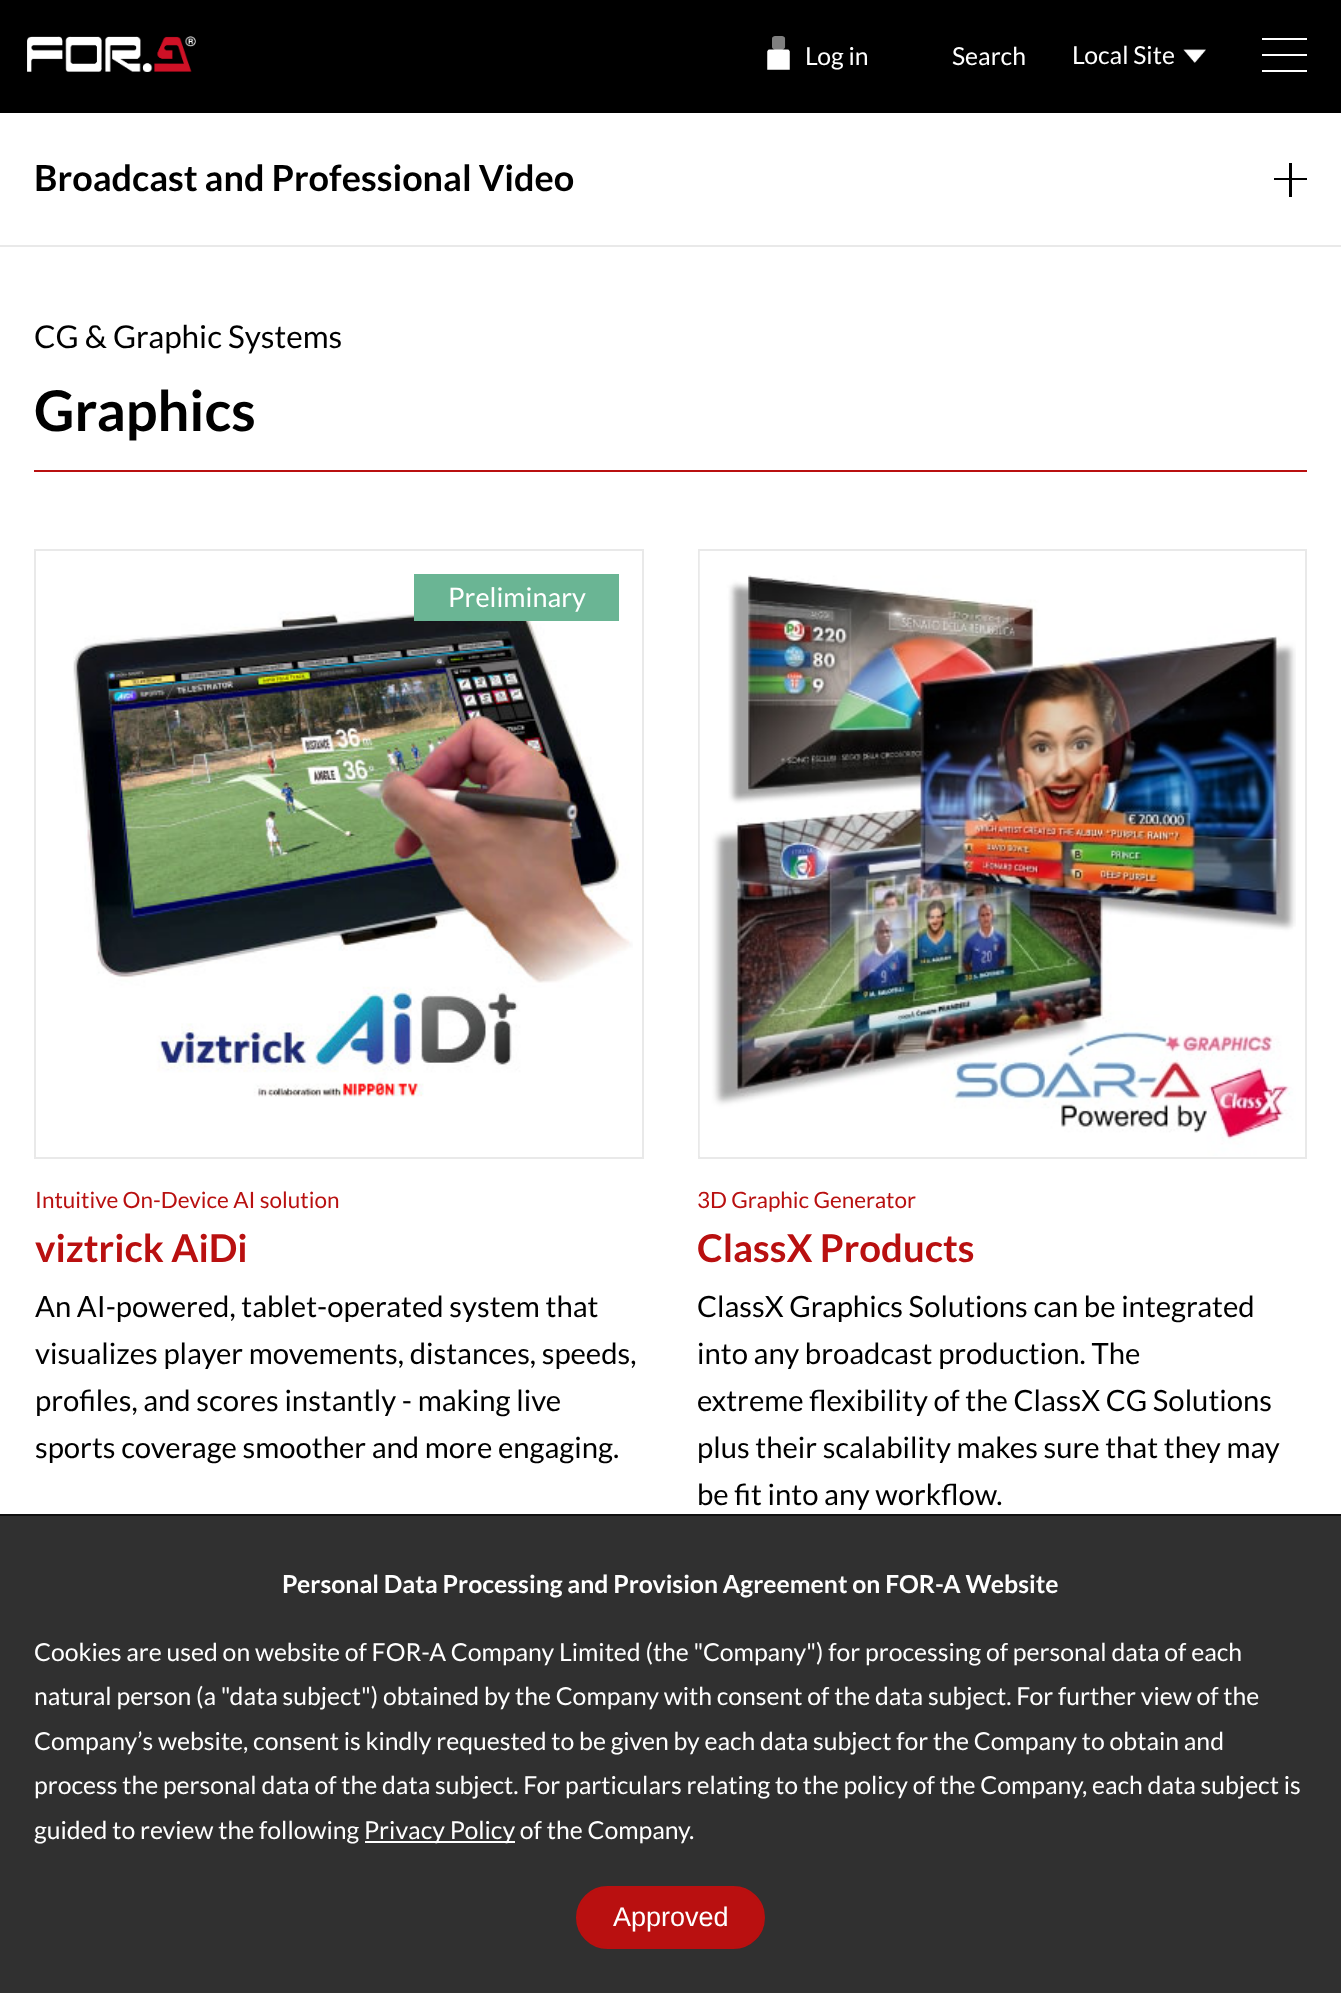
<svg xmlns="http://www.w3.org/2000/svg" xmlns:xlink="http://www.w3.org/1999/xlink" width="1341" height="1993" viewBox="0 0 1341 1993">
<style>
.cls-1{font:24.75px Lato;fill:#ffffff}
.cls-2{font:bold 36px Lato;fill:#000000}
.cls-3{font:31.5px Lato;fill:#000000}
.cls-4{font:bold 56px Lato;fill:#000000}
.cls-5{font:27px Lato;fill:#ffffff}
.cls-6{font:22.5px Lato;fill:#b91010}
.cls-7{font:bold 38.25px Lato;fill:#b91010}
.cls-8{font:29.25px Lato;fill:#000000}
.cls-9{font:bold 24.75px Lato;fill:#ffffff}
.cls-10{font:27px Liberation Sans;fill:#ffffff}
</style>
<rect width="100%" height="100%" fill="#ffffff"/>
<rect fill="#000000" x="0" y="0" width="1341" height="113"/>
<image xlink:href="image0.png" x="27" y="36" width="169" height="36"/>
<image xlink:href="image1.png" x="767" y="36" width="23" height="34"/>
<image xlink:href="image2.png" x="1183" y="49" width="23" height="14"/>
<rect fill="#ffffff" x="1262" y="38" width="45" height="2"/>
<rect fill="#ffffff" x="1262" y="54" width="45" height="2"/>
<rect fill="#ffffff" x="1262" y="70" width="45" height="2"/>
<rect fill="#e9e9e9" x="0" y="245" width="1341" height="2"/>
<rect fill="#000000" x="1274" y="178" width="33" height="2"/>
<rect fill="#000000" x="1289" y="163" width="3" height="34"/>
<rect fill="#b91010" x="34" y="470" width="1273" height="2"/>
<rect fill="none" stroke="#e9e9e9" stroke-width="2" x="35" y="550" width="608" height="608"/>
<image xlink:href="image3.png" x="73" y="604" width="560" height="493"/>
<rect fill="#6ab594" x="414" y="574" width="205" height="47"/>
<rect fill="none" stroke="#e9e9e9" stroke-width="2" x="699" y="550" width="607" height="608"/>
<image xlink:href="image4.png" x="699" y="551" width="597" height="605"/>
<rect fill="#303030" x="0" y="1516" width="1341" height="477"/>
<rect fill="#101010" x="0" y="1514" width="1341" height="2"/>
<rect fill="#ffffff" x="365" y="1841" width="150" height="2"/>
<rect fill="#b91010" stroke="#b91010" stroke-width="2" x="577" y="1887" width="187" height="61" rx="30.5"/>
<text class="cls-1" x="805" y="65">Log in</text>
<text class="cls-1" x="952" y="65">Search</text>
<text class="cls-1" x="1072" y="64">Local Site</text>
<text class="cls-2" x="34" y="191">Broadcast and Professional Video</text>
<text class="cls-3" x="34" y="348">CG &amp; Graphic Systems</text>
<text class="cls-4" x="34" y="431">Graphics</text>
<text class="cls-5" x="448" y="607">Preliminary</text>
<text class="cls-6" x="35" y="1208">Intuitive On-Device AI solution</text>
<text class="cls-7" x="35" y="1262">viztrick AiDi</text>
<text class="cls-8"><tspan x="35" y="1317">An AI-powered, tablet-operated system that</tspan><tspan x="35" y="1364">visualizes player movements, distances, speeds,</tspan><tspan x="35" y="1411">profiles, and scores instantly - making live</tspan><tspan x="35" y="1458">sports coverage smoother and more engaging.</tspan></text>
<text class="cls-6" x="697" y="1208">3D Graphic Generator</text>
<text class="cls-7" x="697" y="1262">ClassX Products</text>
<text class="cls-8"><tspan x="697" y="1317">ClassX Graphics Solutions can be integrated</tspan><tspan x="697" y="1364">into any broadcast production. The</tspan><tspan x="697" y="1411">extreme flexibility of the ClassX CG Solutions</tspan><tspan x="697" y="1458">plus their scalability makes sure that they may</tspan><tspan x="697" y="1505">be fit into any workflow.</tspan></text>
<text class="cls-9" x="282" y="1593">Personal Data Processing and Provision Agreement on FOR-A Website</text>
<text class="cls-1"><tspan x="34" y="1661">Cookies are used on website of FOR-A Company Limited (the "Company") for processing of personal data of each</tspan><tspan x="34" y="1705">natural person (a "data subject") obtained by the Company with consent of the data subject. For further view of the</tspan><tspan x="34" y="1750">Company’s website, consent is kindly requested to be given by each data subject for the Company to obtain and</tspan><tspan x="34" y="1794">process the personal data of the data subject. For particulars relating to the policy of the Company, each data subject is</tspan><tspan x="34" y="1839">guided to review the following</tspan></text>
<text class="cls-1" x="364" y="1839">Privacy Policy of the Company.</text>
<text class="cls-10" x="613" y="1926">Approved</text>
</svg>
